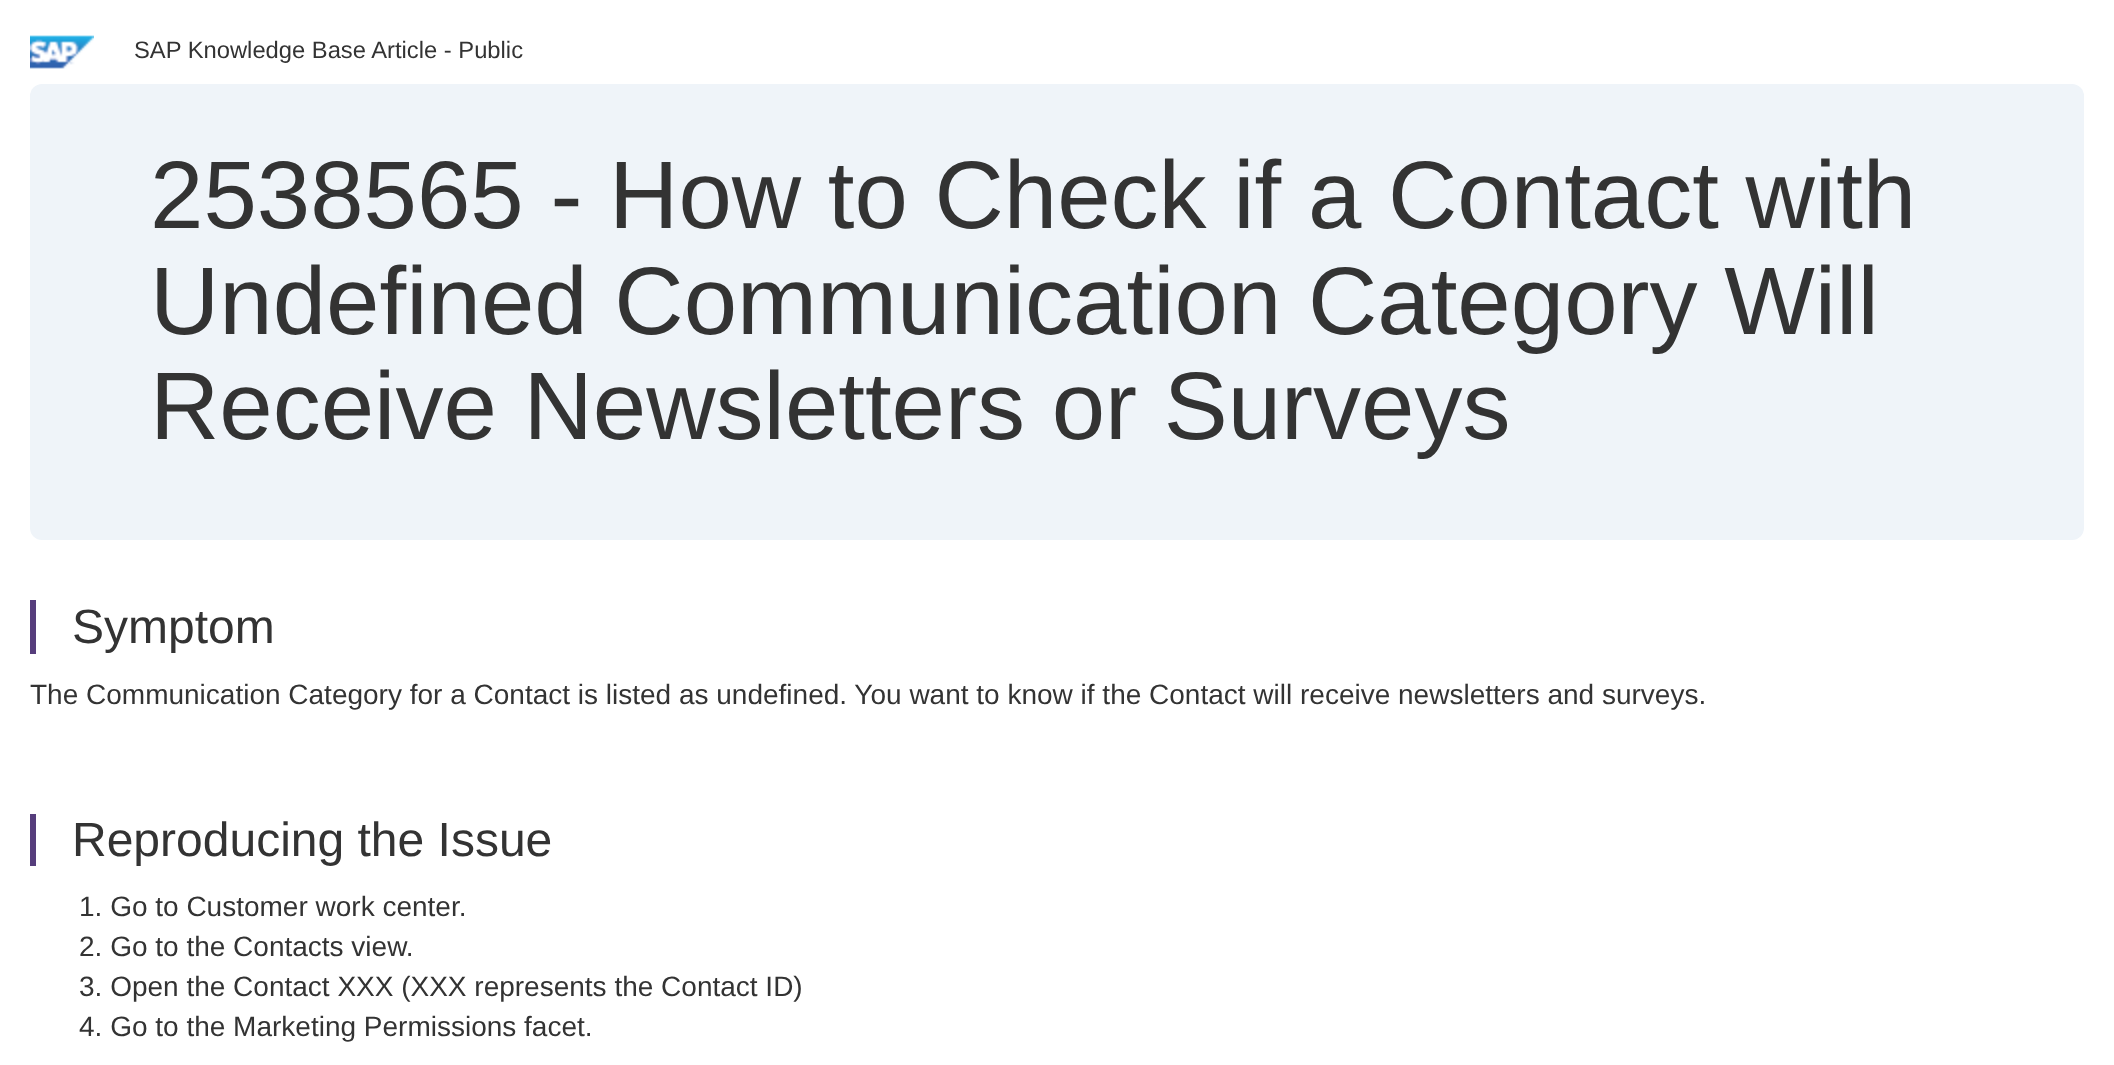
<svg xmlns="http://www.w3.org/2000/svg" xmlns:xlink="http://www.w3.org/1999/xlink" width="2114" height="1065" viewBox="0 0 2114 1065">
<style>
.cls-1{font:23.75px Liberation Sans;fill:#333333}
.cls-2{font:96px Liberation Sans;fill:#333333}
.cls-3{font:48px Liberation Sans;fill:#333333}
.cls-4{font:28px Liberation Sans;fill:#333333}
</style>
<rect width="100%" height="100%" fill="#ffffff"/>
<image xlink:href="image0.png" x="30" y="35" width="64" height="34"/>
<rect fill="#eff4f9" x="30" y="84" width="2054" height="456" rx="12"/>
<rect fill="#563d7c" x="30" y="600" width="6" height="54"/>
<rect fill="#563d7c" x="30" y="814" width="6" height="52"/>
<text class="cls-1" x="134" y="58">SAP Knowledge Base Article - Public</text>
<text class="cls-2"><tspan x="150" y="228">2538565 - How to Check if a Contact with</tspan><tspan x="150" y="334">Undefined Communication Category Will</tspan><tspan x="150" y="439">Receive Newsletters or Surveys</tspan></text>
<text class="cls-3" x="72" y="643">Symptom</text>
<text class="cls-4" x="30" y="704">The Communication Category for a Contact is listed as undefined. You want to know if the Contact will receive newsletters and surveys.</text>
<text class="cls-3" x="72" y="856">Reproducing the Issue</text>
<text class="cls-4"><tspan x="79" y="916">1. Go to Customer work center.</tspan><tspan x="79" y="956">2. Go to the Contacts view.</tspan><tspan x="79" y="996">3. Open the Contact XXX (XXX represents the Contact ID)</tspan><tspan x="79" y="1036">4. Go to the Marketing Permissions facet.</tspan></text>
</svg>
